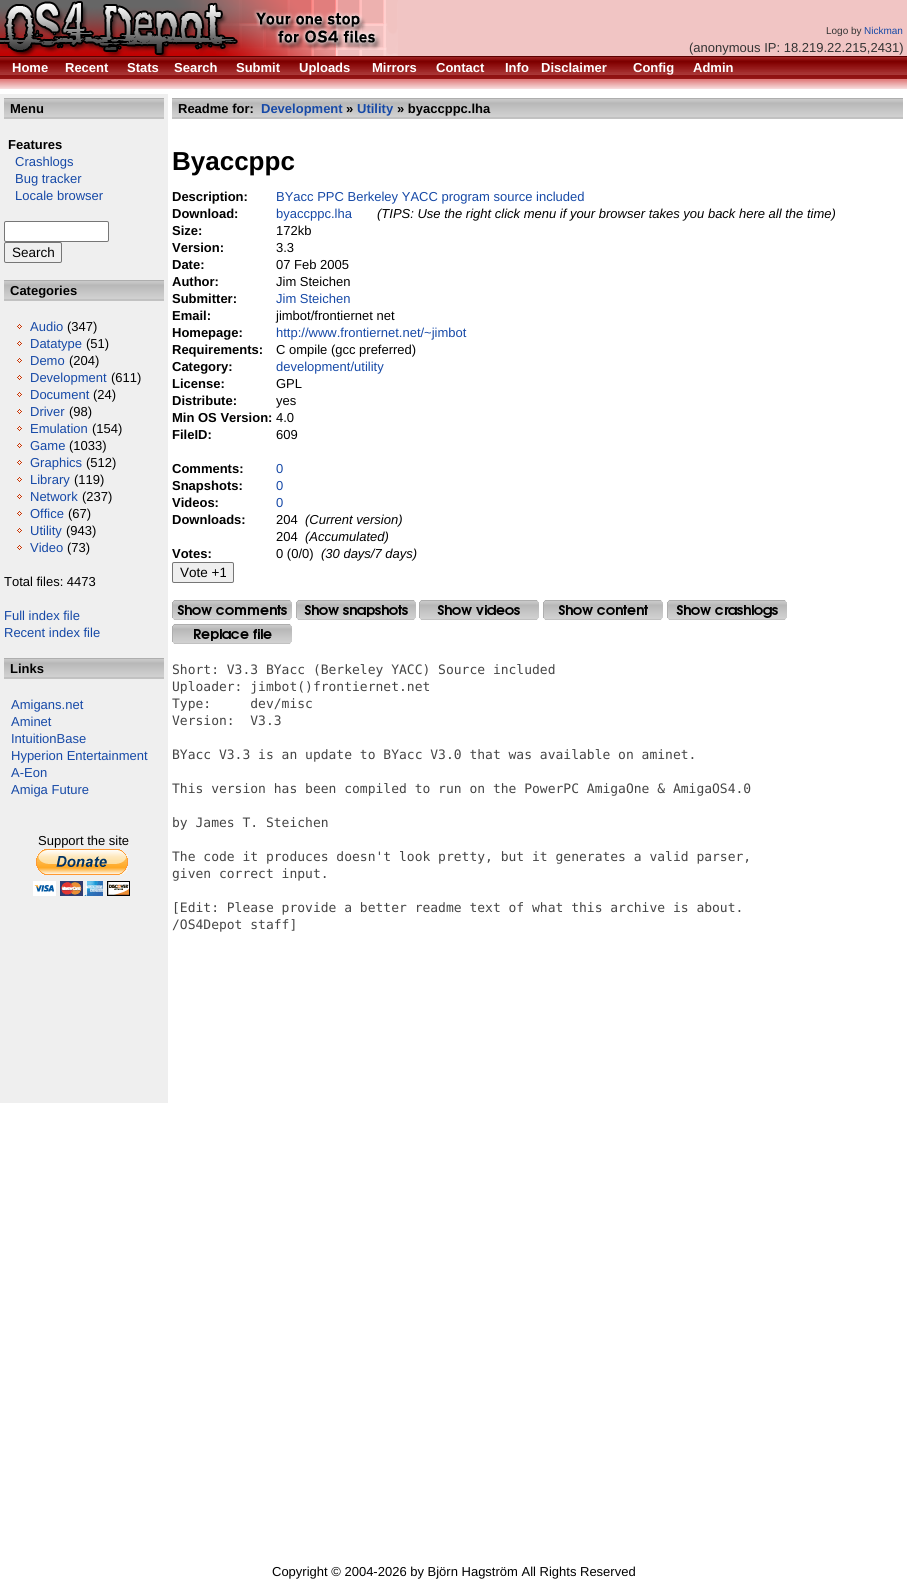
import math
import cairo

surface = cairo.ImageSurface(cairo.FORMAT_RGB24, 907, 1581)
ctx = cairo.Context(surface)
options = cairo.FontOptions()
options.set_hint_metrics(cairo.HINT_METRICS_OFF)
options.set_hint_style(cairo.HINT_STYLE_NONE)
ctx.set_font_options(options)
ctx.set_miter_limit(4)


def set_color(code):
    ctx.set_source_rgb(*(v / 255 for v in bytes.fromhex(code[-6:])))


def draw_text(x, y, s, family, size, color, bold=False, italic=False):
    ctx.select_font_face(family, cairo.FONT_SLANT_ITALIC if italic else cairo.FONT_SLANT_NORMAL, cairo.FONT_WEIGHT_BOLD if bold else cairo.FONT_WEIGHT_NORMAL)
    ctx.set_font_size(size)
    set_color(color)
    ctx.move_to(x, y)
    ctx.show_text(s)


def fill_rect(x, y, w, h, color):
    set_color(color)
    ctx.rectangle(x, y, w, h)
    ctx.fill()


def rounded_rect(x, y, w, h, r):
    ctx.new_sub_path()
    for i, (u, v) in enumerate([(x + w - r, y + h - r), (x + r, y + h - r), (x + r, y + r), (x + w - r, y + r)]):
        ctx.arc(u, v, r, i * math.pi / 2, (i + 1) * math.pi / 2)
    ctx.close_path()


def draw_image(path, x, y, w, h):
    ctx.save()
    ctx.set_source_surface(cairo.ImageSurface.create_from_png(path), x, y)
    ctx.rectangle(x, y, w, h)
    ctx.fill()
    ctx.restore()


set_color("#ffffff")
ctx.paint()
fill_rect(398, 0, 509, 56, "#f1c5c4")
draw_image("assets/img1.png", 0, 0, 398, 56)
draw_text(826, 34, "Logo by", "Liberation Sans", 10, "#333333")
draw_text(864, 34, "Nickman", "Liberation Sans", 10, "#1649a7")
draw_text(689, 52, "(anonymous IP: 18.219.22.215,2431)", "Liberation Sans", 13, "#333333")
draw_image("assets/img2.png", 0, 56, 907, 23)
draw_text(12, 72, "Home", "Liberation Sans", 13, "#ffffff", bold=True)
draw_text(65, 72, "Recent", "Liberation Sans", 13, "#ffffff", bold=True)
draw_text(127, 72, "Stats", "Liberation Sans", 13, "#ffffff", bold=True)
draw_text(174, 72, "Search", "Liberation Sans", 13, "#ffffff", bold=True)
draw_text(236, 72, "Submit", "Liberation Sans", 13, "#ffffff", bold=True)
draw_text(299, 72, "Uploads", "Liberation Sans", 13, "#ffffff", bold=True)
draw_text(372, 72, "Mirrors", "Liberation Sans", 13, "#ffffff", bold=True)
draw_text(436, 72, "Contact", "Liberation Sans", 13, "#ffffff", bold=True)
draw_text(505, 72, "Info", "Liberation Sans", 13, "#ffffff", bold=True)
draw_text(541, 72, "Disclaimer", "Liberation Sans", 13, "#ffffff", bold=True)
draw_text(633, 72, "Config", "Liberation Sans", 13, "#ffffff", bold=True)
draw_text(693, 72, "Admin", "Liberation Sans", 13, "#ffffff", bold=True)
fill_rect(0, 79, 907, 1, "#e18080")
draw_image("assets/img3.png", 0, 80, 907, 9)
fill_rect(0, 94, 168, 1009, "#efefef")
draw_image("assets/img4.png", 4, 98, 160, 21)
draw_text(10, 113, "Menu", "Liberation Sans", 13, "#000000", bold=True)
draw_text(8, 149, "Features", "Liberation Sans", 13, "#000000", bold=True)
draw_text(15, 166, "Crashlogs", "Liberation Sans", 13, "#1649a7")
draw_text(15, 183, "Bug tracker", "Liberation Sans", 13, "#1649a7")
draw_text(15, 200, "Locale browser", "Liberation Sans", 13, "#1649a7")
set_color("#ffffff")
rounded_rect(4.5, 221.5, 104, 20, 1.5)
ctx.fill_preserve()
set_color("#767676")
ctx.set_line_width(1)
ctx.stroke()
rounded_rect(4.5, 242.5, 57, 20, 1.5)
ctx.stroke()
draw_text(12, 257, "Search", "Liberation Sans", 13.5, "#000000")
draw_image("assets/img4.png", 4, 280, 160, 21)
draw_text(10, 295, "Categories", "Liberation Sans", 13, "#000000", bold=True)
draw_image("assets/img5.png", 17, 324, 5, 5)
draw_text(30, 331, "Audio", "Liberation Sans", 13, "#1649a7")
draw_text(67, 331, "(347)", "Liberation Sans", 13, "#000000")
draw_image("assets/img5.png", 17, 341, 5, 5)
draw_text(30, 348, "Datatype", "Liberation Sans", 13, "#1649a7")
draw_text(86, 348, "(51)", "Liberation Sans", 13, "#000000")
draw_image("assets/img5.png", 17, 358, 5, 5)
draw_text(30, 365, "Demo", "Liberation Sans", 13, "#1649a7")
draw_text(69, 365, "(204)", "Liberation Sans", 13, "#000000")
draw_image("assets/img5.png", 17, 375, 5, 5)
draw_text(30, 382, "Development", "Liberation Sans", 13, "#1649a7")
draw_text(111, 382, "(611)", "Liberation Sans", 13, "#000000")
draw_image("assets/img5.png", 17, 392, 5, 5)
draw_text(30, 399, "Document", "Liberation Sans", 13, "#1649a7")
draw_text(93, 399, "(24)", "Liberation Sans", 13, "#000000")
draw_image("assets/img5.png", 17, 409, 5, 5)
draw_text(30, 416, "Driver", "Liberation Sans", 13, "#1649a7")
draw_text(69, 416, "(98)", "Liberation Sans", 13, "#000000")
draw_image("assets/img5.png", 17, 426, 5, 5)
draw_text(30, 433, "Emulation", "Liberation Sans", 13, "#1649a7")
draw_text(92, 433, "(154)", "Liberation Sans", 13, "#000000")
draw_image("assets/img5.png", 17, 443, 5, 5)
draw_text(30, 450, "Game", "Liberation Sans", 13, "#1649a7")
draw_text(69, 450, "(1033)", "Liberation Sans", 13, "#000000")
draw_image("assets/img5.png", 17, 460, 5, 5)
draw_text(30, 467, "Graphics", "Liberation Sans", 13, "#1649a7")
draw_text(86, 467, "(512)", "Liberation Sans", 13, "#000000")
draw_image("assets/img5.png", 17, 477, 5, 5)
draw_text(30, 484, "Library", "Liberation Sans", 13, "#1649a7")
draw_text(74, 484, "(119)", "Liberation Sans", 13, "#000000")
draw_image("assets/img5.png", 17, 494, 5, 5)
draw_text(30, 501, "Network", "Liberation Sans", 13, "#1649a7")
draw_text(82, 501, "(237)", "Liberation Sans", 13, "#000000")
draw_image("assets/img5.png", 17, 511, 5, 5)
draw_text(30, 518, "Office", "Liberation Sans", 13, "#1649a7")
draw_text(68, 518, "(67)", "Liberation Sans", 13, "#000000")
draw_image("assets/img5.png", 17, 528, 5, 5)
draw_text(30, 535, "Utility", "Liberation Sans", 13, "#1649a7")
draw_text(66, 535, "(943)", "Liberation Sans", 13, "#000000")
draw_image("assets/img5.png", 17, 545, 5, 5)
draw_text(30, 552, "Video", "Liberation Sans", 13, "#1649a7")
draw_text(67, 552, "(73)", "Liberation Sans", 13, "#000000")
draw_text(4, 586, "Total files: 4473", "Liberation Sans", 13, "#000000")
draw_text(4, 620, "Full index file", "Liberation Sans", 13, "#1649a7")
draw_text(4, 637, "Recent index file", "Liberation Sans", 13, "#1649a7")
draw_image("assets/img4.png", 4, 658, 160, 21)
draw_text(10, 673, "Links", "Liberation Sans", 13, "#000000", bold=True)
draw_text(11, 709, "Amigans.net", "Liberation Sans", 13, "#1649a7")
draw_text(11, 726, "Aminet", "Liberation Sans", 13, "#1649a7")
draw_text(11, 743, "IntuitionBase", "Liberation Sans", 13, "#1649a7")
draw_text(11, 760, "Hyperion Entertainment", "Liberation Sans", 13, "#1649a7")
draw_text(11, 777, "A-Eon", "Liberation Sans", 13, "#1649a7")
draw_text(11, 794, "Amiga Future", "Liberation Sans", 13, "#1649a7")
draw_text(38, 845, "Support the site", "Liberation Sans", 13, "#000000")
draw_image("assets/img6.png", 33, 849, 97, 47)
draw_image("assets/img7.png", 172, 98, 731, 21)
draw_text(178, 113, "Readme for:", "Liberation Sans", 13, "#000000", bold=True)
draw_text(261, 113, "Development", "Liberation Sans", 13, "#1649a7", bold=True)
draw_text(346, 113, "»", "Liberation Sans", 13, "#000000", bold=True)
draw_text(357, 113, "Utility", "Liberation Sans", 13, "#1649a7", bold=True)
draw_text(397, 113, "» byaccppc.lha", "Liberation Sans", 13, "#000000", bold=True)
draw_text(172, 170, "Byaccppc", "Liberation Sans", 26, "#000000", bold=True)
draw_text(172, 201, "Description:", "Liberation Sans", 13, "#000000", bold=True)
draw_text(276, 201, "BYacc PPC Berkeley YACC program source included", "Liberation Sans", 13, "#1649a7")
draw_text(172, 218, "Download:", "Liberation Sans", 13, "#000000", bold=True)
draw_text(276, 218, "byaccppc.lha", "Liberation Sans", 13, "#1649a7")
draw_text(377, 218, "(TIPS: Use the right click menu if your browser takes you back here all the time)", "Liberation Sans", 13, "#000000", italic=True)
draw_text(172, 235, "Size:", "Liberation Sans", 13, "#000000", bold=True)
draw_text(276, 235, "172kb", "Liberation Sans", 13, "#000000")
draw_text(172, 252, "Version:", "Liberation Sans", 13, "#000000", bold=True)
draw_text(276, 252, "3.3", "Liberation Sans", 13, "#000000")
draw_text(172, 269, "Date:", "Liberation Sans", 13, "#000000", bold=True)
draw_text(276, 269, "07 Feb 2005", "Liberation Sans", 13, "#000000")
draw_text(172, 286, "Author:", "Liberation Sans", 13, "#000000", bold=True)
draw_text(276, 286, "Jim Steichen", "Liberation Sans", 13, "#000000")
draw_text(172, 303, "Submitter:", "Liberation Sans", 13, "#000000", bold=True)
draw_text(276, 303, "Jim Steichen", "Liberation Sans", 13, "#1649a7")
draw_text(172, 320, "Email:", "Liberation Sans", 13, "#000000", bold=True)
draw_text(276, 320, "jimbot/frontiernet net", "Liberation Sans", 13, "#000000")
draw_text(172, 337, "Homepage:", "Liberation Sans", 13, "#000000", bold=True)
draw_text(276, 337, "http://www.frontiernet.net/~jimbot", "Liberation Sans", 13, "#1649a7")
draw_text(172, 354, "Requirements:", "Liberation Sans", 13, "#000000", bold=True)
draw_text(276, 354, "C ompile (gcc preferred)", "Liberation Sans", 13, "#000000")
draw_text(172, 371, "Category:", "Liberation Sans", 13, "#000000", bold=True)
draw_text(276, 371, "development/utility", "Liberation Sans", 13, "#1649a7")
draw_text(172, 388, "License:", "Liberation Sans", 13, "#000000", bold=True)
draw_text(276, 388, "GPL", "Liberation Sans", 13, "#000000")
draw_text(172, 405, "Distribute:", "Liberation Sans", 13, "#000000", bold=True)
draw_text(276, 405, "yes", "Liberation Sans", 13, "#000000")
draw_text(172, 422, "Min OS Version:", "Liberation Sans", 13, "#000000", bold=True)
draw_text(276, 422, "4.0", "Liberation Sans", 13, "#000000")
draw_text(172, 439, "FileID:", "Liberation Sans", 13, "#000000", bold=True)
draw_text(276, 439, "609", "Liberation Sans", 13, "#000000")
draw_text(172, 473, "Comments:", "Liberation Sans", 13, "#000000", bold=True)
draw_text(276, 473, "0", "Liberation Sans", 13, "#1649a7")
draw_text(172, 490, "Snapshots:", "Liberation Sans", 13, "#000000", bold=True)
draw_text(276, 490, "0", "Liberation Sans", 13, "#1649a7")
draw_text(172, 507, "Videos:", "Liberation Sans", 13, "#000000", bold=True)
draw_text(276, 507, "0", "Liberation Sans", 13, "#1649a7")
draw_text(172, 524, "Downloads:", "Liberation Sans", 13, "#000000", bold=True)
draw_text(276, 524, "204", "Liberation Sans", 13, "#000000")
draw_text(305, 524, "(Current version)", "Liberation Sans", 13, "#000000", italic=True)
draw_text(276, 541, "204", "Liberation Sans", 13, "#000000")
draw_text(305, 541, "(Accumulated)", "Liberation Sans", 13, "#000000", italic=True)
draw_text(172, 558, "Votes:", "Liberation Sans", 13, "#000000", bold=True)
draw_text(276, 558, "0 (0/0)", "Liberation Sans", 13, "#000000")
draw_text(321, 558, "(30 days/7 days)", "Liberation Sans", 13, "#000000", italic=True)
set_color("#efefef")
rounded_rect(172.5, 562.5, 61, 20, 1.5)
ctx.fill_preserve()
set_color("#767676")
ctx.stroke()
draw_text(180, 577, "Vote +1", "Liberation Sans", 13.5, "#000000")
draw_image("assets/img8.png", 172, 600, 120, 20)
draw_image("assets/img9.png", 296, 600, 120, 20)
draw_image("assets/img10.png", 419, 600, 120, 20)
draw_image("assets/img11.png", 543, 600, 120, 20)
draw_image("assets/img12.png", 667, 600, 120, 20)
draw_image("assets/img13.png", 172, 624, 120, 20)
draw_text(172, 674, "Short: V3.3 BYacc (Berkeley YACC) Source included", "DejaVu Sans Mono", 13, "#444444")
draw_text(172, 691, "Uploader: jimbot()frontiernet.net", "DejaVu Sans Mono", 13, "#444444")
draw_text(172, 708, "Type:     dev/misc", "DejaVu Sans Mono", 13, "#444444")
draw_text(172, 725, "Version:  V3.3", "DejaVu Sans Mono", 13, "#444444")
draw_text(172, 759, "BYacc V3.3 is an update to BYacc V3.0 that was available on aminet.", "DejaVu Sans Mono", 13, "#444444")
draw_text(172, 793, "This version has been compiled to run on the PowerPC AmigaOne & AmigaOS4.0", "DejaVu Sans Mono", 13, "#444444")
draw_text(172, 827, "by James T. Steichen", "DejaVu Sans Mono", 13, "#444444")
draw_text(172, 861, "The code it produces doesn't look pretty, but it generates a valid parser,", "DejaVu Sans Mono", 13, "#444444")
draw_text(172, 878, "given correct input.", "DejaVu Sans Mono", 13, "#444444")
draw_text(172, 912, "[Edit: Please provide a better readme text of what this archive is about.", "DejaVu Sans Mono", 13, "#444444")
draw_text(172, 929, "/OS4Depot staff]", "DejaVu Sans Mono", 13, "#444444")
draw_text(272, 1576, "Copyright © 2004-2026 by Björn Hagström All Rights Reserved", "Liberation Sans", 13, "#000000")
surface.write_to_png("output.png")
